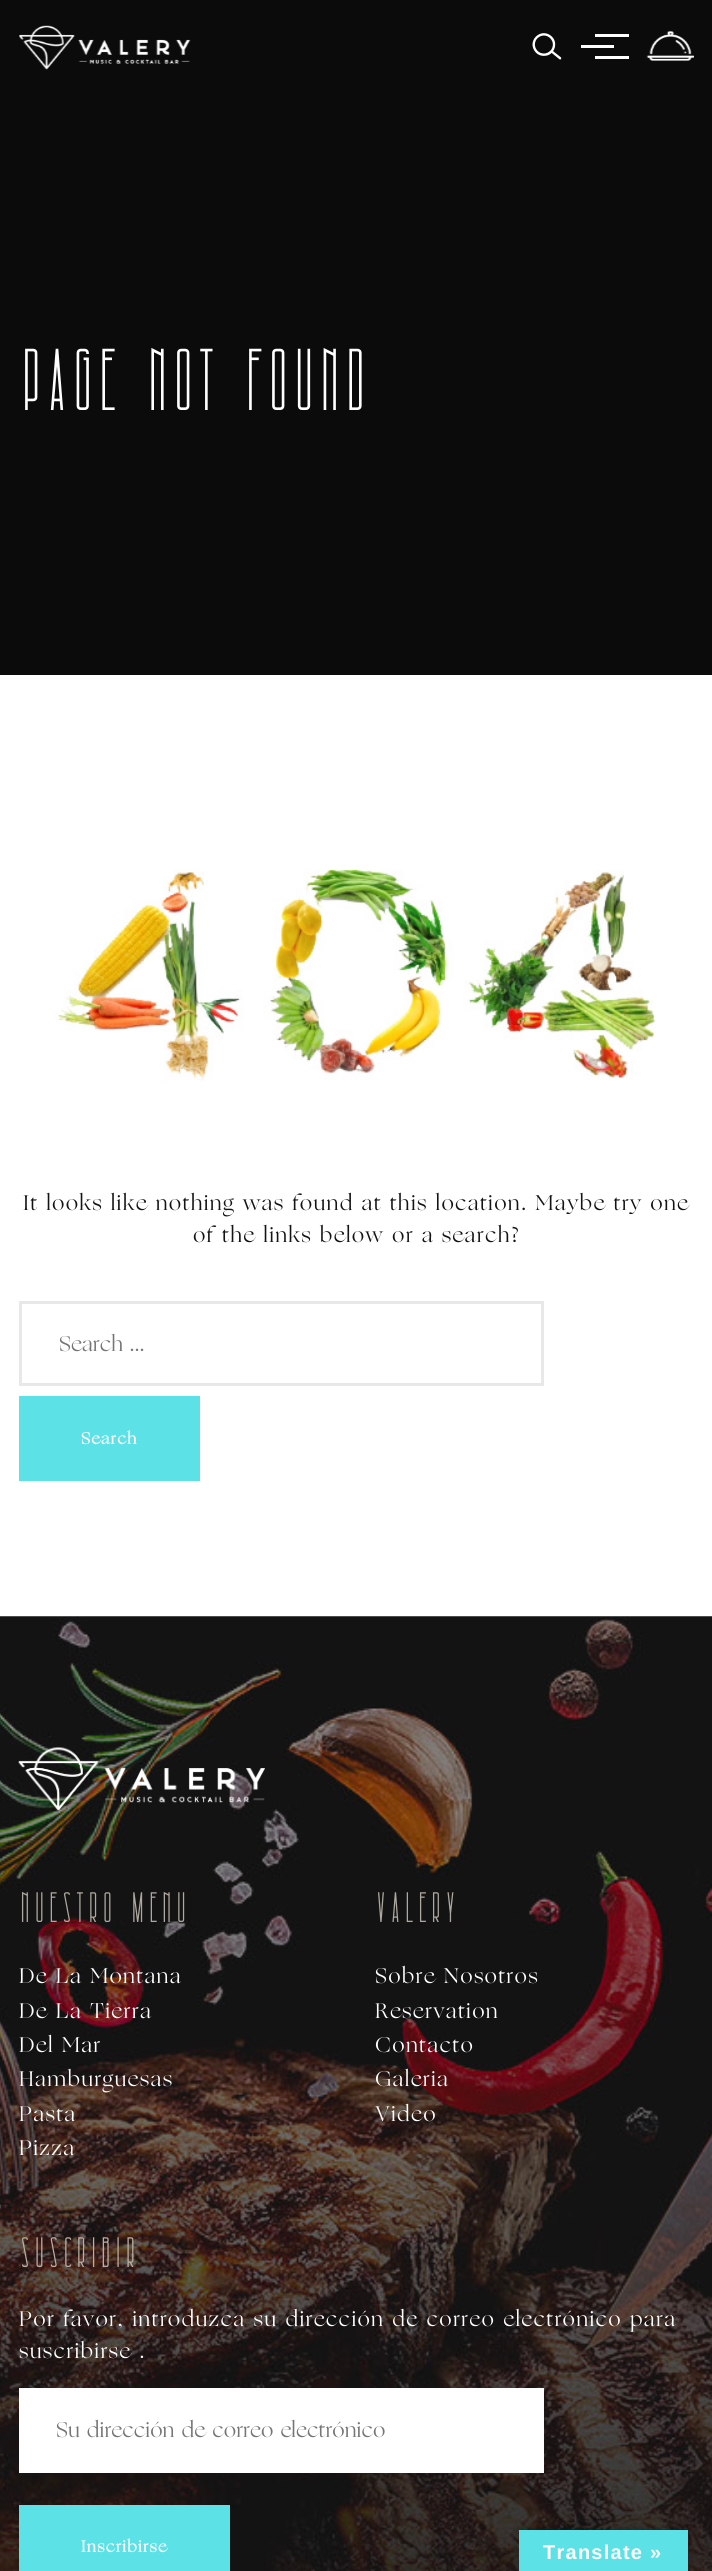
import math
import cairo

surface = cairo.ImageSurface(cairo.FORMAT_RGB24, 712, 2571)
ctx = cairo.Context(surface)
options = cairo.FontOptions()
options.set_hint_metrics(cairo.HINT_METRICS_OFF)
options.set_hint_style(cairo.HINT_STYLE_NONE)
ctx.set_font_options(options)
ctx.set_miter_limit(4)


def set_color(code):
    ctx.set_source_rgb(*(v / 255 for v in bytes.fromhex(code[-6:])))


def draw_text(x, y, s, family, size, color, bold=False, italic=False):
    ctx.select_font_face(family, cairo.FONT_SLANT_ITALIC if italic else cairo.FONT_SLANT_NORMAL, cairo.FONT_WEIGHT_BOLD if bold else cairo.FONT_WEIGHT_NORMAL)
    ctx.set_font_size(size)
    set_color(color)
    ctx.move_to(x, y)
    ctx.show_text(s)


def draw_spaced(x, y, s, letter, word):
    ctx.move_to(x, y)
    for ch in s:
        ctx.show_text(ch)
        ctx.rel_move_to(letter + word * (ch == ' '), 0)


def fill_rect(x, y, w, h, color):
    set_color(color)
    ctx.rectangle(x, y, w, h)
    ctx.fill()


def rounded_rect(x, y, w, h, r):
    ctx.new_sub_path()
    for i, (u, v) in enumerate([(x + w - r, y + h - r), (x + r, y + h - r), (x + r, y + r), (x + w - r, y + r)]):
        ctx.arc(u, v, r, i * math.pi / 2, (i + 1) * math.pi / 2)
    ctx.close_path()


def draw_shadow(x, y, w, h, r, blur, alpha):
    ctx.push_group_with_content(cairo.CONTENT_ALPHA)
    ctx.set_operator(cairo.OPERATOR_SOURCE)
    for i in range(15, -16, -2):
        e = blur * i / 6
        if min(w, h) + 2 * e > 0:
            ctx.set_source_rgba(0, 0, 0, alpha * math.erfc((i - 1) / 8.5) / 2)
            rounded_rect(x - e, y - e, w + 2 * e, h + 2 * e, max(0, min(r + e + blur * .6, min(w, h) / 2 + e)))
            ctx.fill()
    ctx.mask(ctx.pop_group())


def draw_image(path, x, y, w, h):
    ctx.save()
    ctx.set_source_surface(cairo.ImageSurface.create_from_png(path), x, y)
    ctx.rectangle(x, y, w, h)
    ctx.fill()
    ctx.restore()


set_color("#ffffff")
ctx.paint()
fill_rect(0, 0, 712, 675, "#0b0b0b")
draw_image("assets/img1.png", 19, 25, 172, 45)
draw_image("assets/img2.png", 532, 33, 30, 27)
fill_rect(595, 34, 34, 3, "#ffffff")
fill_rect(581, 45, 33, 3, "#ffffff")
fill_rect(595, 56, 34, 3, "#ffffff")
draw_image("assets/img3.png", 646, 31, 48, 30)
ctx.select_font_face("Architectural")
ctx.set_font_size(87.5)
draw_spaced(19, 410, "Page not found", 1.25, 0)
draw_image("assets/img4.png", 54, 869, 603, 212)
ctx.select_font_face("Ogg")
ctx.set_font_size(21.25)
set_color("#131313")
draw_spaced(23, 1210, "It looks like nothing was found at this location. Maybe try one", 1.25, 0)
draw_spaced(193, 1242, "of the links below or a search?", 1.25, 0)
ctx.rectangle(20.5, 1302.5, 522, 82)
set_color("#e8e8e8")
ctx.set_line_width(3)
ctx.stroke()
draw_text(59, 1351, "Search …", "Ogg", 21.25, "#757575")
fill_rect(19, 1396, 181, 85, "#5ce1e6")
ctx.select_font_face("Ogg", cairo.FONT_SLANT_NORMAL, cairo.FONT_WEIGHT_BOLD)
ctx.set_font_size(16.25)
set_color("#ffffff")
draw_spaced(81, 1444, "Search", 1.25, 0)
draw_image("assets/img5.png", 0, 1616, 712, 955)
draw_image("assets/img6.png", 18, 1747, 247, 63)
ctx.select_font_face("Architectural")
ctx.set_font_size(42.5)
set_color("#aea89e")
draw_spaced(19, 1922, "NUESTRO MENU", 2.5, 0)
ctx.select_font_face("Ogg")
ctx.set_font_size(21.25)
set_color("#ffffff")
draw_spaced(19, 1983, "De La Montana", 1.25, 0)
draw_spaced(19, 2018, "De La Tierra", 1.25, 0)
draw_spaced(19, 2052, "Del Mar", 1.25, 0)
draw_spaced(19, 2086, "Hamburguesas", 1.25, 0)
draw_spaced(19, 2121, "Pasta", 1.25, 0)
draw_spaced(19, 2155, "Pizza", 1.25, 0)
ctx.select_font_face("Architectural")
ctx.set_font_size(42.5)
set_color("#aea89e")
draw_spaced(375, 1922, "Valery", 2.5, 0)
ctx.select_font_face("Ogg")
ctx.set_font_size(21.25)
set_color("#ffffff")
draw_spaced(375, 1983, "Sobre Nosotros", 1.25, 0)
draw_spaced(375, 2018, "Reservation", 1.25, 0)
draw_spaced(375, 2052, "Contacto", 1.25, 0)
draw_spaced(375, 2086, "Galeria", 1.25, 0)
draw_spaced(375, 2121, "Video", 1.25, 0)
ctx.select_font_face("Architectural")
ctx.set_font_size(42.5)
set_color("#bbafa2")
draw_spaced(19, 2267, "SUSCRIBIR", 2.5, 0)
ctx.select_font_face("Ogg")
ctx.set_font_size(21.25)
set_color("#ffffff")
draw_spaced(19, 2326, "Por favor, introduzca su dirección de correo electrónico para", 1.25, 0.25)
draw_spaced(19, 2358, "suscribirse .", 1.25, 0)
fill_rect(19, 2388, 525, 85, "#ffffff")
set_color("#757575")
draw_spaced(56, 2437, "Su dirección de correo electrónico", 0, 0.5)
fill_rect(19, 2505, 211, 66, "#5ce1e6")
ctx.select_font_face("Ogg", cairo.FONT_SLANT_NORMAL, cairo.FONT_WEIGHT_BOLD)
ctx.set_font_size(16.25)
set_color("#ffffff")
draw_spaced(81, 2552, "Inscribirse", 1.25, 0)
set_color("#000000")
draw_shadow(519, 2530, 169, 41, 0, 5.5, 0.3)
fill_rect(519, 2530, 169, 41, "#5ce1e6")
ctx.select_font_face("Liberation Sans", cairo.FONT_SLANT_NORMAL, cairo.FONT_WEIGHT_BOLD)
ctx.set_font_size(20)
set_color("#ffffff")
draw_spaced(543, 2559, "Translate »", 1.25, 0)
surface.write_to_png("output.png")
